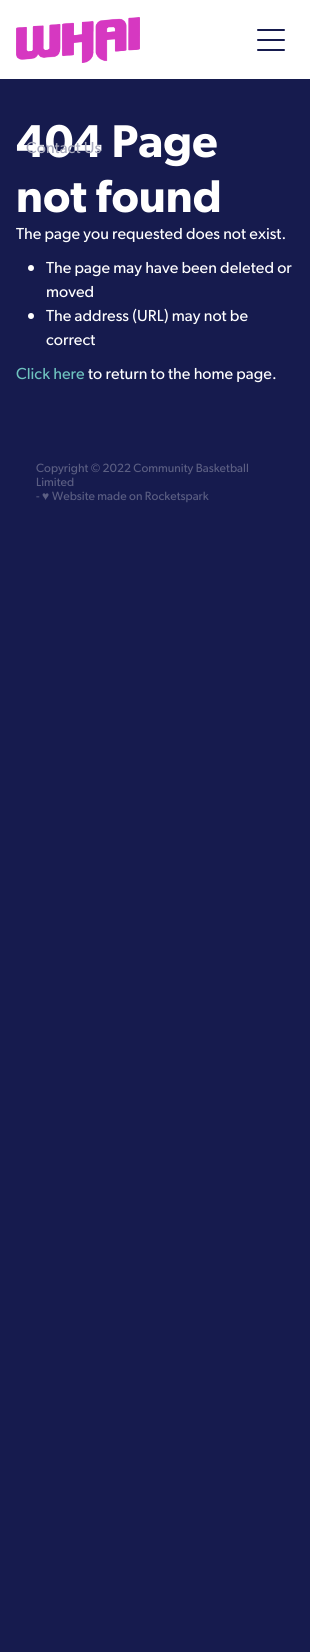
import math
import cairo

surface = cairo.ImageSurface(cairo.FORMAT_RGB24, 310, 1652)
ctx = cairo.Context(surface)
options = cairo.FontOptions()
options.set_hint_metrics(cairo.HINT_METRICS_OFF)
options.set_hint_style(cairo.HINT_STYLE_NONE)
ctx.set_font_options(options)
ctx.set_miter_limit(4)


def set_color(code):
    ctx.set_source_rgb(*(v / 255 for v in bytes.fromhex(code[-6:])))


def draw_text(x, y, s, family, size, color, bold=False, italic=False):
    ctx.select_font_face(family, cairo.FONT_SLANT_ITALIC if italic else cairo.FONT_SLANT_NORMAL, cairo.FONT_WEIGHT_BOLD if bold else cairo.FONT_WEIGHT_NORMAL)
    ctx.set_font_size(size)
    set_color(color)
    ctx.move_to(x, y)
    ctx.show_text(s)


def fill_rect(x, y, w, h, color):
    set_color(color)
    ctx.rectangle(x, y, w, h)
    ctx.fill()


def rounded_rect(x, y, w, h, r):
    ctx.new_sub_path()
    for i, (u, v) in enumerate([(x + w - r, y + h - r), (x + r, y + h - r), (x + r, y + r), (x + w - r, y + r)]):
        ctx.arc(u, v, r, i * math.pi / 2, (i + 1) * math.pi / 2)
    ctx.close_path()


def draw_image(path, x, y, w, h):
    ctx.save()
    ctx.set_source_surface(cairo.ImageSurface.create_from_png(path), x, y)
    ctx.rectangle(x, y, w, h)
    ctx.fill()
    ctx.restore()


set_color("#161b4e")
ctx.paint()
draw_text(16, 157, "404 Page", "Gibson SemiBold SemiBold", 46, "#ffffff")
draw_text(16, 212, "not found", "Gibson SemiBold SemiBold", 46, "#ffffff")
draw_text(16, 239, "The page you requested does not exist.", "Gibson", 16, "#ffffff")
ctx.new_path()
ctx.arc(31, 268, 3, 0, 2 * math.pi)
ctx.fill()
draw_text(46, 273, "The page may have been deleted or", "Gibson", 16, "#ffffff")
draw_text(46, 297, "moved", "Gibson", 16, "#ffffff")
ctx.new_path()
ctx.arc(31, 316, 3, 0, 2 * math.pi)
ctx.fill()
draw_text(46, 321, "The address (URL) may not be", "Gibson", 16, "#ffffff")
draw_text(46, 345, "correct", "Gibson", 16, "#ffffff")
draw_text(16, 379, "Click here", "Gibson", 16, "#6ec3bf")
draw_text(88, 379, "to return to the home page.", "Gibson", 16, "#ffffff")
fill_rect(0, 0, 310, 79, "#ffffff")
draw_image("assets/img1.png", 16, 17, 124, 46)
set_color("#161b4e")
rounded_rect(257, 39, 28, 2, 1)
ctx.fill()
rounded_rect(257, 29, 28, 2, 1)
ctx.fill()
rounded_rect(257, 49, 28, 2, 1)
ctx.fill()
draw_text(26, 153, "Contact Us", "Gibson", 16, "#a7a9bc")
draw_text(36, 472, "Copyright © 2022 Community Basketball", "Gibson", 12, "#5c5f83")
draw_text(36, 486, "Limited", "Gibson", 12, "#5c5f83")
draw_text(36, 500, "-", "Gibson", 12, "#5c5f83")
draw_text(42, 500, "♥", "Liberation Sans", 12, "#5c5f83")
draw_text(52, 500, "Website made on Rocketspark", "Gibson", 12, "#5c5f83")
surface.write_to_png("output.png")
